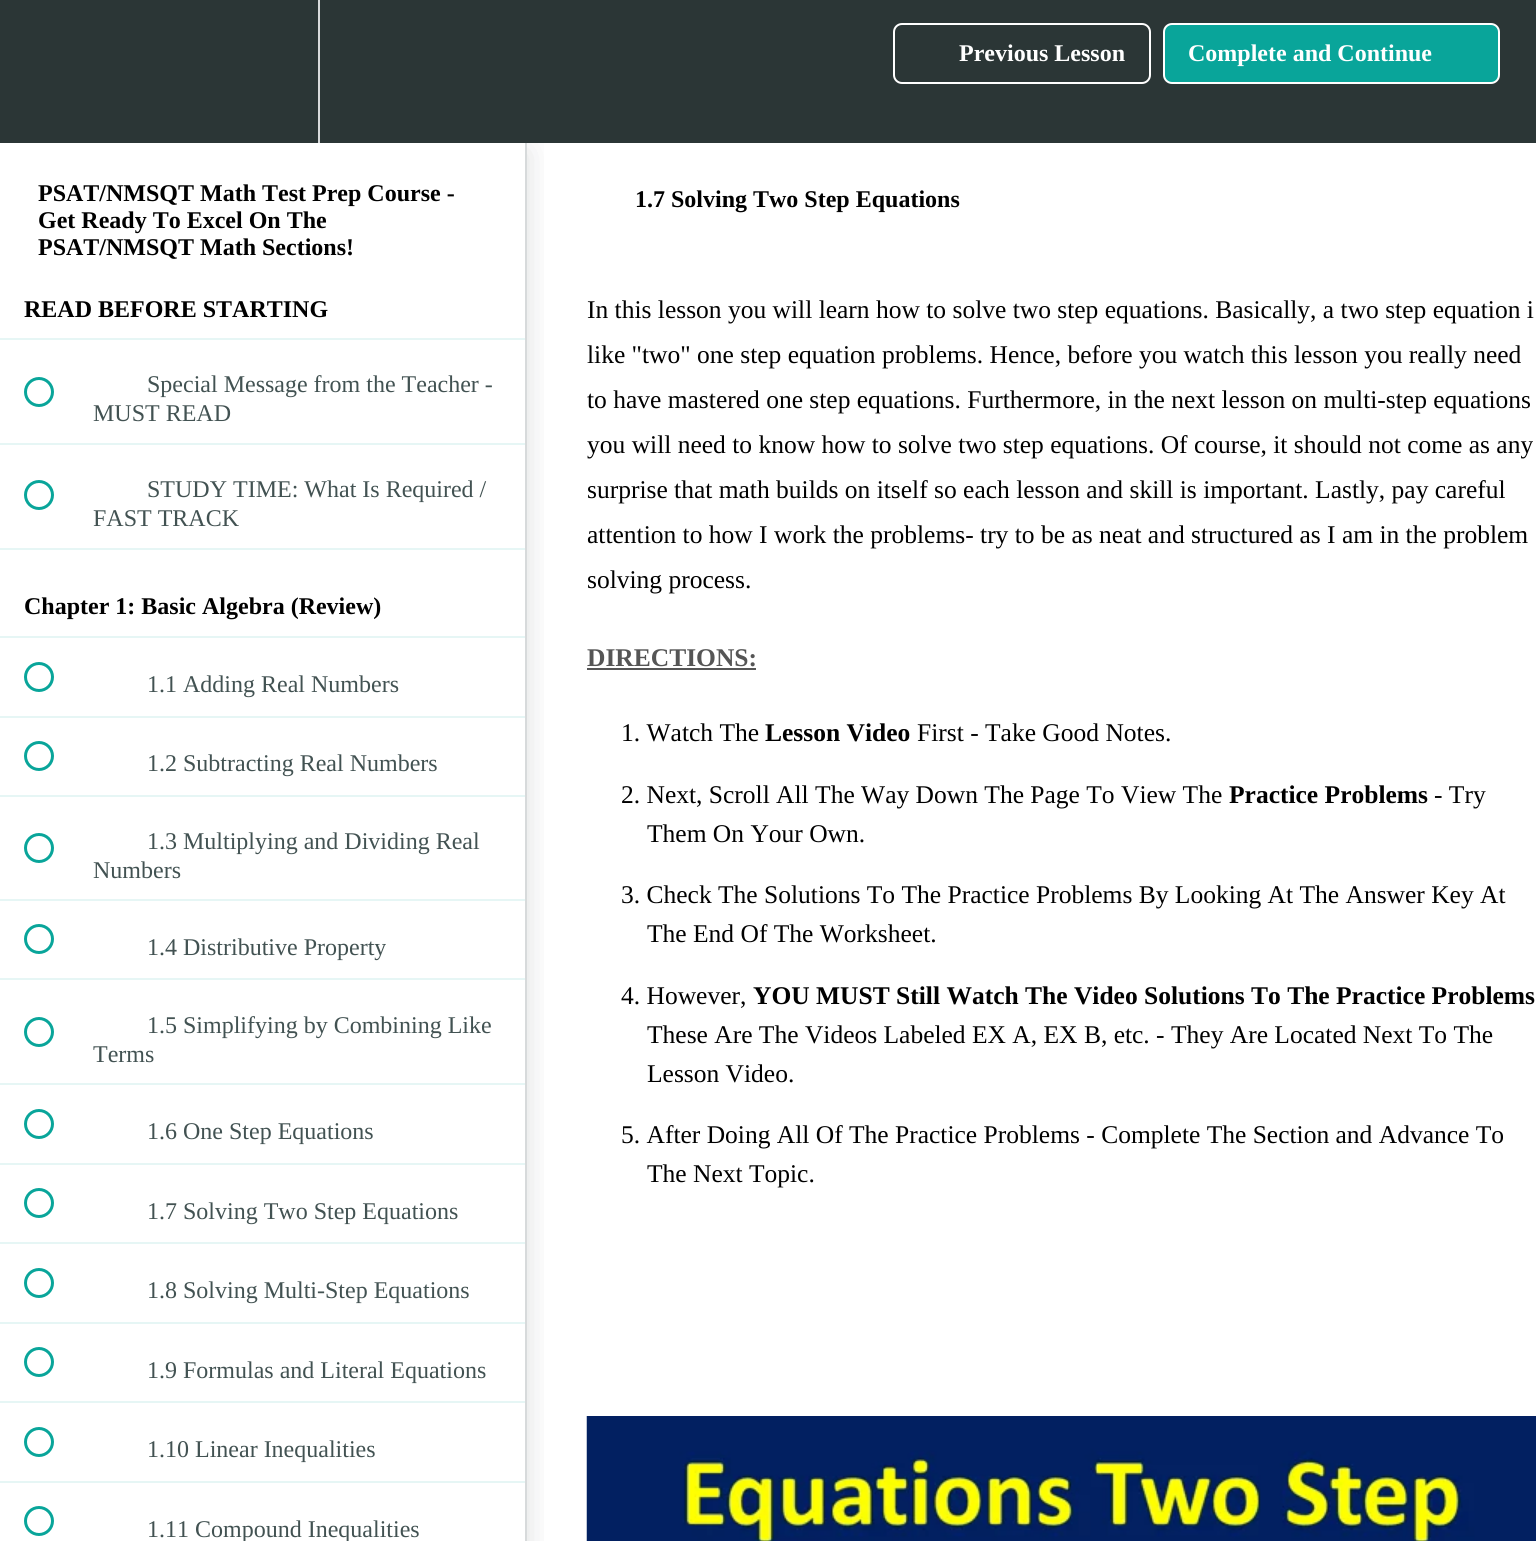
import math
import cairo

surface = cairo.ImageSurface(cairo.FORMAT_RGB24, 1536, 1541)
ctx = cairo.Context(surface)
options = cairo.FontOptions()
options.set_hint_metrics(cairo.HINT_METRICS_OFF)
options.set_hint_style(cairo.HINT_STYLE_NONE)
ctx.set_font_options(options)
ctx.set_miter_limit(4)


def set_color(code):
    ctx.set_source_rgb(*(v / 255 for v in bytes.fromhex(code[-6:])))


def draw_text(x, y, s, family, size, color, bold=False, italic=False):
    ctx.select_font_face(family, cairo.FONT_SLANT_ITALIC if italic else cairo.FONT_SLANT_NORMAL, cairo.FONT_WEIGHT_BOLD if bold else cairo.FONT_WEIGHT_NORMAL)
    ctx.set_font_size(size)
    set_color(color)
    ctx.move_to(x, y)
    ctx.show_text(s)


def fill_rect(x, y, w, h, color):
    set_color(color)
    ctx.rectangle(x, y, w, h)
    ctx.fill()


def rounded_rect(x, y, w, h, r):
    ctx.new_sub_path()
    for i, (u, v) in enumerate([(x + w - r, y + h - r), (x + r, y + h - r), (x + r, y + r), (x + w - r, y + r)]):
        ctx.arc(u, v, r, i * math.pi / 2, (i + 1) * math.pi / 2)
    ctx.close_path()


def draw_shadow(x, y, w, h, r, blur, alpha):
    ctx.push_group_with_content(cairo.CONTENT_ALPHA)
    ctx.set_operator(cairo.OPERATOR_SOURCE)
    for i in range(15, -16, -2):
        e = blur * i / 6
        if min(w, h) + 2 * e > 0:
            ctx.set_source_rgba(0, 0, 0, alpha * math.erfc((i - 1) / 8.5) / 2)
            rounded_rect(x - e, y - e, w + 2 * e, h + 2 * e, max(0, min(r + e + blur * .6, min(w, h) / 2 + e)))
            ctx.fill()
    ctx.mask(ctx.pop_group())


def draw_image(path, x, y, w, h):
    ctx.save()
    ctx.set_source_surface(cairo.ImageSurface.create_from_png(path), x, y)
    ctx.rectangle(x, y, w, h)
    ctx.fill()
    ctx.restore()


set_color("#ffffff")
ctx.paint()
ctx.save()
ctx.rectangle(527, 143, 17, 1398)
ctx.clip()
set_color("#20272d")
draw_shadow(0, 152, 527, 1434, 0, 15, 0.15)
ctx.restore()
fill_rect(0, 0, 1536, 143, "#2b3636")
fill_rect(318, 0, 2, 143, "#d7dadb")
rounded_rect(894, 24, 256, 59, 8)
set_color("#ffffff")
ctx.stroke()
draw_text(959, 61, "Previous Lesson", "Liberation Serif", 24, "#ffffff", bold=True)
set_color("#09a59a")
rounded_rect(1164, 24, 335, 59, 8)
ctx.fill_preserve()
set_color("#ffffff")
ctx.stroke()
draw_text(1188, 61, "Complete and Continue", "Liberation Serif", 24, "#ffffff", bold=True)
fill_rect(525, 143, 2, 1398, "#d7dadb")
draw_text(38, 201, "PSAT/NMSQT Math Test Prep Course -", "Liberation Serif", 24, "#000000", bold=True)
draw_text(38, 228, "Get Ready To Excel On The", "Liberation Serif", 24, "#000000", bold=True)
draw_text(38, 255, "PSAT/NMSQT Math Sections!", "Liberation Serif", 24, "#000000", bold=True)
fill_rect(0, 338, 525, 2, "#e6f6f5")
draw_text(24, 317, "READ BEFORE STARTING", "Liberation Serif", 24, "#000000", bold=True)
fill_rect(0, 443, 525, 2, "#e6f6f5")
ctx.new_path()
ctx.arc(39, 392, 13.5, 0, 2 * math.pi)
set_color("#09a59a")
ctx.set_line_width(3)
ctx.stroke()
draw_text(147, 392, "Special Message from the Teacher -", "Liberation Serif", 24, "#425252")
draw_text(93, 421, "MUST READ", "Liberation Serif", 24, "#425252")
fill_rect(0, 548, 525, 2, "#e6f6f5")
ctx.new_path()
ctx.arc(39, 495, 13.5, 0, 2 * math.pi)
set_color("#09a59a")
ctx.stroke()
draw_text(147, 497, "STUDY TIME: What Is Required /", "Liberation Serif", 24, "#425252")
draw_text(93, 526, "FAST TRACK", "Liberation Serif", 24, "#425252")
fill_rect(0, 636, 525, 2, "#e6f6f5")
draw_text(24, 614, "Chapter 1: Basic Algebra (Review)", "Liberation Serif", 24, "#000000", bold=True)
fill_rect(0, 716, 525, 2, "#e6f6f5")
ctx.new_path()
ctx.arc(39, 677, 13.5, 0, 2 * math.pi)
set_color("#09a59a")
ctx.stroke()
draw_text(147, 692, "1.1 Adding Real Numbers", "Liberation Serif", 24, "#425252")
fill_rect(0, 795, 525, 2, "#e6f6f5")
ctx.new_path()
ctx.arc(39, 756, 13.5, 0, 2 * math.pi)
set_color("#09a59a")
ctx.stroke()
draw_text(147, 771, "1.2 Subtracting Real Numbers", "Liberation Serif", 24, "#425252")
fill_rect(0, 899, 525, 2, "#e6f6f5")
ctx.new_path()
ctx.arc(39, 848, 13.5, 0, 2 * math.pi)
set_color("#09a59a")
ctx.stroke()
draw_text(147, 849, "1.3 Multiplying and Dividing Real", "Liberation Serif", 24, "#425252")
draw_text(93, 878, "Numbers", "Liberation Serif", 24, "#425252")
fill_rect(0, 978, 525, 2, "#e6f6f5")
ctx.new_path()
ctx.arc(39, 939, 13.5, 0, 2 * math.pi)
set_color("#09a59a")
ctx.stroke()
draw_text(147, 955, "1.4 Distributive Property", "Liberation Serif", 24, "#425252")
fill_rect(0, 1083, 525, 2, "#e6f6f5")
ctx.new_path()
ctx.arc(39, 1032, 13.5, 0, 2 * math.pi)
set_color("#09a59a")
ctx.stroke()
draw_text(147, 1033, "1.5 Simplifying by Combining Like", "Liberation Serif", 24, "#425252")
draw_text(93, 1062, "Terms", "Liberation Serif", 24, "#425252")
fill_rect(0, 1163, 525, 2, "#e6f6f5")
ctx.new_path()
ctx.arc(39, 1124, 13.5, 0, 2 * math.pi)
set_color("#09a59a")
ctx.stroke()
draw_text(147, 1139, "1.6 One Step Equations", "Liberation Serif", 24, "#425252")
fill_rect(0, 1242, 525, 2, "#e6f6f5")
ctx.new_path()
ctx.arc(39, 1203, 13.5, 0, 2 * math.pi)
set_color("#09a59a")
ctx.stroke()
draw_text(147, 1219, "1.7 Solving Two Step Equations", "Liberation Serif", 24, "#425252")
fill_rect(0, 1322, 525, 2, "#e6f6f5")
ctx.new_path()
ctx.arc(39, 1283, 13.5, 0, 2 * math.pi)
set_color("#09a59a")
ctx.stroke()
draw_text(147, 1298, "1.8 Solving Multi-Step Equations", "Liberation Serif", 24, "#425252")
fill_rect(0, 1401, 525, 2, "#e6f6f5")
ctx.new_path()
ctx.arc(39, 1362, 13.5, 0, 2 * math.pi)
set_color("#09a59a")
ctx.stroke()
draw_text(147, 1378, "1.9 Formulas and Literal Equations", "Liberation Serif", 24, "#425252")
fill_rect(0, 1481, 525, 2, "#e6f6f5")
ctx.new_path()
ctx.arc(39, 1442, 13.5, 0, 2 * math.pi)
set_color("#09a59a")
ctx.stroke()
draw_text(147, 1457, "1.10 Linear Inequalities", "Liberation Serif", 24, "#425252")
ctx.new_path()
ctx.arc(39, 1521, 13.5, 0, 2 * math.pi)
set_color("#09a59a")
ctx.stroke()
draw_text(147, 1537, "1.11 Compound Inequalities", "Liberation Serif", 24, "#425252")
draw_text(635, 207, "1.7 Solving Two Step Equations", "Liberation Serif", 24, "#000000", bold=True)
draw_text(587, 318, "In this lesson you will learn how to solve two step equations. Basically, a two step equation i", "Liberation Serif", 25.5, "#000000")
draw_text(587, 363, "like \"two\" one step equation problems. Hence, before you watch this lesson you really need", "Liberation Serif", 25.5, "#000000")
draw_text(587, 408, "to have mastered one step equations. Furthermore, in the next lesson on multi-step equations", "Liberation Serif", 25.5, "#000000")
draw_text(587, 453, "you will need to know how to solve two step equations. Of course, it should not come as any", "Liberation Serif", 25.5, "#000000")
draw_text(587, 498, "surprise that math builds on itself so each lesson and skill is important. Lastly, pay careful", "Liberation Serif", 25.5, "#000000")
draw_text(587, 543, "attention to how I work the problems- try to be as neat and structured as I am in the problem", "Liberation Serif", 25.5, "#000000")
draw_text(587, 588, "solving process.", "Liberation Serif", 25.5, "#000000")
draw_text(587, 666, "DIRECTIONS:", "Liberation Serif", 25.5, "#555555", bold=True)
fill_rect(587, 668, 169, 2, "#555555")
draw_text(621, 741, "1. Watch The", "Liberation Serif", 25.5, "#000000")
draw_text(765, 741, "Lesson Video", "Liberation Serif", 25.5, "#000000", bold=True)
draw_text(917, 741, "First - Take Good Notes.", "Liberation Serif", 25.5, "#000000")
draw_text(621, 803, "2. Next, Scroll All The Way Down The Page To View The", "Liberation Serif", 25.5, "#000000")
draw_text(1229, 803, "Practice Problems", "Liberation Serif", 25.5, "#000000", bold=True)
draw_text(1434, 803, "- Try", "Liberation Serif", 25.5, "#000000")
draw_text(647, 842, "Them On Your Own.", "Liberation Serif", 25.5, "#000000")
draw_text(621, 903, "3. Check The Solutions To The Practice Problems By Looking At The Answer Key At", "Liberation Serif", 25.5, "#000000")
draw_text(647, 942, "The End Of The Worksheet.", "Liberation Serif", 25.5, "#000000")
draw_text(621, 1004, "4. However,", "Liberation Serif", 25.5, "#000000")
draw_text(753, 1004, "YOU MUST Still Watch The Video Solutions To The Practice Problems", "Liberation Serif", 25.5, "#000000", bold=True)
draw_text(647, 1043, "These Are The Videos Labeled EX A, EX B, etc. - They Are Located Next To The", "Liberation Serif", 25.5, "#000000")
draw_text(647, 1082, "Lesson Video.", "Liberation Serif", 25.5, "#000000")
draw_text(621, 1143, "5. After Doing All Of The Practice Problems - Complete The Section and Advance To", "Liberation Serif", 25.5, "#000000")
draw_text(647, 1182, "The Next Topic.", "Liberation Serif", 25.5, "#000000")
draw_image("assets/img1.png", 586, 1416, 950, 125)
surface.write_to_png("output.png")
